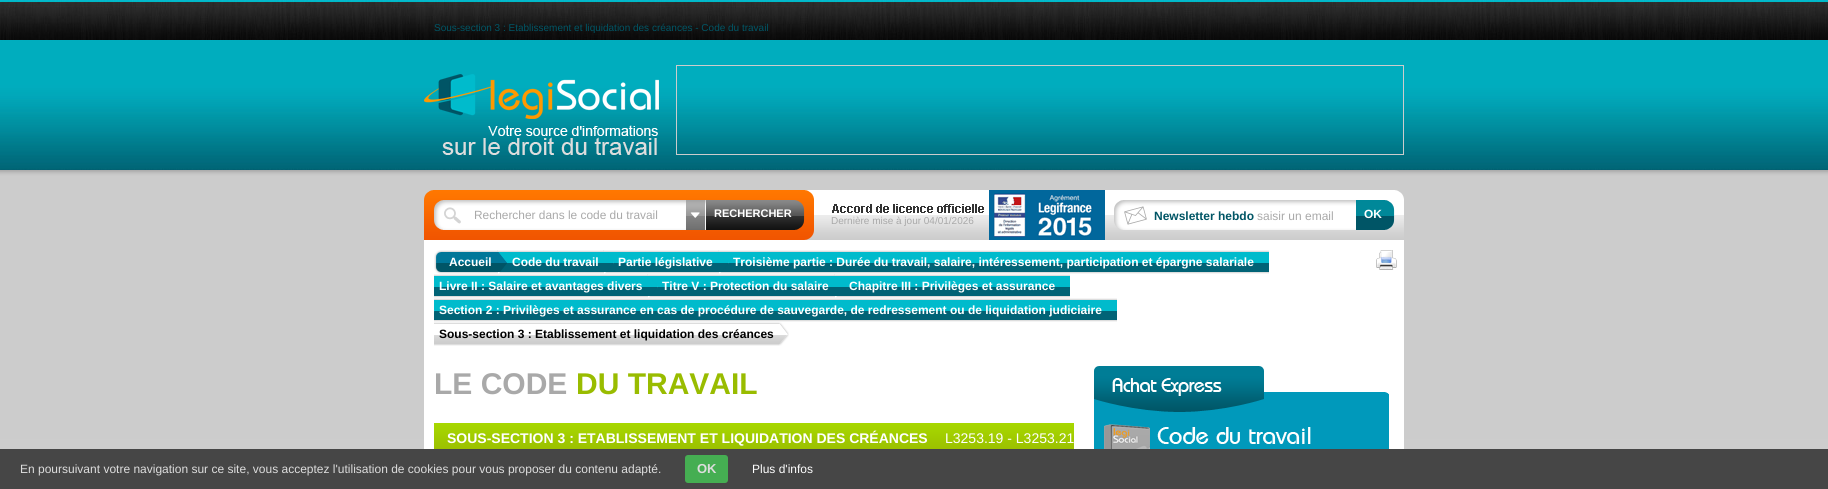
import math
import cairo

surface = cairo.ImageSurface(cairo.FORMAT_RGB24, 1828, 489)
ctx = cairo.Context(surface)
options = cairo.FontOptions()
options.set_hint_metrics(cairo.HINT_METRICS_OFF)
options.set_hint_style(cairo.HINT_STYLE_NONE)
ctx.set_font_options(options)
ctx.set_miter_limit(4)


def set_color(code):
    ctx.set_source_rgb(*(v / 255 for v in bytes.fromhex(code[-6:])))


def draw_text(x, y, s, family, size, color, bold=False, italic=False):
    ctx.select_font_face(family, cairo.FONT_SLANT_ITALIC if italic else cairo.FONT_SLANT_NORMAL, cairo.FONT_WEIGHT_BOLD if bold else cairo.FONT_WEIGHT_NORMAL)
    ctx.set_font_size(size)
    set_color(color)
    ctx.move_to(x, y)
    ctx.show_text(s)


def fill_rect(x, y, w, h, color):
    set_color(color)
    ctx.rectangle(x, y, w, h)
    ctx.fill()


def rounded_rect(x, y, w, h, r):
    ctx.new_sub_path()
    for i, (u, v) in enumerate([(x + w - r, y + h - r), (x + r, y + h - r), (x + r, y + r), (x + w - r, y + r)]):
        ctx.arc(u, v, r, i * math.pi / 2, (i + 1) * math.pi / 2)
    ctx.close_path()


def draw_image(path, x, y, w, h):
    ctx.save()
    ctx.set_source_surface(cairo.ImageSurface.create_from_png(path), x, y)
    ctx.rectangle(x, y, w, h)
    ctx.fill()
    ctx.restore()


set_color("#ffffff")
ctx.paint()
draw_image("assets/img1.png", 0, 0, 1828, 170)
draw_text(434, 31, "Sous-section 3 : Etablissement et liquidation des créances - Code du travail", "Liberation Sans", 10, "#005565")
draw_image("assets/img2.png", 424, 74, 235, 81)
ctx.rectangle(676.5, 65.5, 727, 89)
set_color("#cccccc")
ctx.set_line_width(1)
ctx.stroke()
draw_image("assets/img3.png", 0, 170, 1828, 279)
fill_rect(424, 240, 980, 209, "#ffffff")
draw_image("assets/img4.png", 424, 190, 980, 50)
draw_text(474, 219, "Rechercher dans le code du travail", "Liberation Sans", 11.9, "#a9a9a9")
draw_text(714, 217, "RECHERCHER", "Liberation Sans", 11, "#ffffff", bold=True)
draw_text(831, 224, "Dernière mise à jour 04/01/2026", "Liberation Sans", 10, "#a9a9a9")
draw_text(1154, 220, "Newsletter hebdo", "Liberation Sans", 12, "#005565", bold=True)
draw_text(1257, 220, "saisir un email", "Liberation Sans", 12, "#a9a9a9")
draw_text(1364, 218, "OK", "Liberation Sans", 11.9, "#ffffff", bold=True)
draw_image("assets/img5.png", 434, 250, 73, 24)
draw_text(449, 266, "Accueil", "Liberation Sans", 12, "#ffffff", bold=True)
draw_image("assets/img6.png", 497, 250, 116, 24)
draw_text(512, 266, "Code du travail", "Liberation Sans", 12, "#ffffff", bold=True)
draw_image("assets/img7.png", 603, 250, 125, 24)
draw_text(618, 266, "Partie législative", "Liberation Sans", 12, "#ffffff", bold=True)
draw_image("assets/img8.png", 718, 250, 551, 24)
draw_text(733, 266, "Troisième partie : Durée du travail, salaire, intéressement, participation et épargne salariale", "Liberation Sans", 12, "#ffffff", bold=True)
draw_image("assets/img9.png", 1376, 250, 21, 20)
draw_image("assets/img10.png", 434, 274, 223, 24)
draw_text(439, 290, "Livre II : Salaire et avantages divers", "Liberation Sans", 12, "#ffffff", bold=True)
draw_image("assets/img11.png", 647, 274, 197, 24)
draw_text(662, 290, "Titre V : Protection du salaire", "Liberation Sans", 12, "#ffffff", bold=True)
draw_image("assets/img12.png", 834, 274, 236, 24)
draw_text(849, 290, "Chapitre III : Privilèges et assurance", "Liberation Sans", 12, "#ffffff", bold=True)
draw_image("assets/img13.png", 434, 298, 683, 24)
draw_text(439, 314, "Section 2 : Privilèges et assurance en cas de procédure de sauvegarde, de redressement ou de liquidation judiciaire", "Liberation Sans", 12, "#ffffff", bold=True)
draw_image("assets/img14.png", 434, 322, 345, 24)
draw_text(439, 338, "Sous-section 3 : Etablissement et liquidation des créances", "Liberation Sans", 12, "#000000", bold=True)
draw_image("assets/img15.png", 779, 322, 10, 24)
draw_text(434, 394, "LE CODE", "Liberation Sans", 30, "#a9a9a9", bold=True)
draw_text(576, 394, "DU TRAVAIL", "Liberation Sans", 30, "#99bc00", bold=True)
draw_image("assets/img16.png", 434, 423, 640, 26)
draw_text(447, 443, "SOUS-SECTION 3 : ETABLISSEMENT ET LIQUIDATION DES CRÉANCES", "Liberation Sans", 14, "#ffffff", bold=True)
draw_text(945, 443, "L3253.19 - L3253.21", "Liberation Sans", 14, "#ffffff")
draw_image("assets/img17.png", 1094, 366, 295, 46)
fill_rect(1094, 412, 295, 37, "#0099bb")
draw_image("assets/img18.png", 1104, 424, 207, 25)
fill_rect(0, 449, 1828, 40, "#464646")
draw_text(20, 473, "En poursuivant votre navigation sur ce site, vous acceptez l'utilisation de cookies pour vous proposer du contenu adapté.", "Liberation Sans", 12, "#dddddd")
set_color("#45ae52")
rounded_rect(685, 455, 43, 28, 3)
ctx.fill()
draw_text(697, 473, "OK", "Liberation Sans", 13, "#dddddd", bold=True)
draw_text(752, 473, "Plus d'infos", "Liberation Sans", 12, "#ffffff")
surface.write_to_png("output.png")
